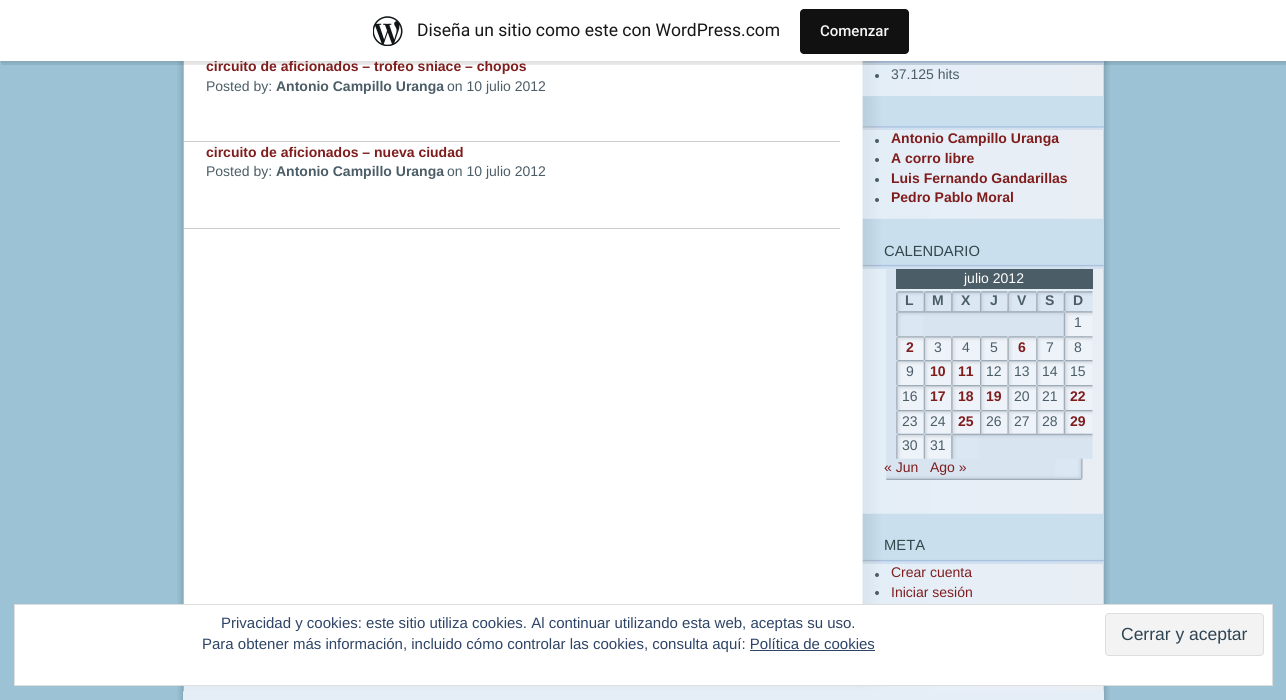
import math
import cairo

surface = cairo.ImageSurface(cairo.FORMAT_RGB24, 1286, 700)
ctx = cairo.Context(surface)
options = cairo.FontOptions()
options.set_hint_metrics(cairo.HINT_METRICS_OFF)
options.set_hint_style(cairo.HINT_STYLE_NONE)
ctx.set_font_options(options)
ctx.set_miter_limit(4)


def set_color(code):
    ctx.set_source_rgb(*(v / 255 for v in bytes.fromhex(code[-6:])))


def draw_text(x, y, s, family, size, color, bold=False, italic=False):
    ctx.select_font_face(family, cairo.FONT_SLANT_ITALIC if italic else cairo.FONT_SLANT_NORMAL, cairo.FONT_WEIGHT_BOLD if bold else cairo.FONT_WEIGHT_NORMAL)
    ctx.set_font_size(size)
    set_color(color)
    ctx.move_to(x, y)
    ctx.show_text(s)


def fill_rect(x, y, w, h, color):
    set_color(color)
    ctx.rectangle(x, y, w, h)
    ctx.fill()


def rounded_rect(x, y, w, h, r):
    ctx.new_sub_path()
    for i, (u, v) in enumerate([(x + w - r, y + h - r), (x + r, y + h - r), (x + r, y + r), (x + w - r, y + r)]):
        ctx.arc(u, v, r, i * math.pi / 2, (i + 1) * math.pi / 2)
    ctx.close_path()


def draw_shadow(x, y, w, h, r, blur, alpha):
    ctx.push_group_with_content(cairo.CONTENT_ALPHA)
    ctx.set_operator(cairo.OPERATOR_SOURCE)
    for i in range(15, -16, -2):
        e = blur * i / 6
        if min(w, h) + 2 * e > 0:
            ctx.set_source_rgba(0, 0, 0, alpha * math.erfc((i - 1) / 8.5) / 2)
            rounded_rect(x - e, y - e, w + 2 * e, h + 2 * e, max(0, min(r + e + blur * .6, min(w, h) / 2 + e)))
            ctx.fill()
    ctx.mask(ctx.pop_group())


def draw_image(path, x, y, w, h):
    ctx.save()
    ctx.set_source_surface(cairo.ImageSurface.create_from_png(path), x, y)
    ctx.rectangle(x, y, w, h)
    ctx.fill()
    ctx.restore()


set_color("#9bc3d5")
ctx.paint()
draw_image("assets/img2.png", 177, 61, 933, 639)
draw_image("assets/img3.png", 862, 61, 242, 4)
set_color("#000000")
draw_shadow(0, 1, 1286, 62, 0, 1, 0.05)
ctx.set_source_rgba(0, 0, 0, 0.08)
ctx.new_path()
ctx.move_to(1, 61)
ctx.line_to(1, 65)
ctx.line_to(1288, 65)
ctx.line_to(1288, 4)
ctx.line_to(1286, 4)
ctx.line_to(1286, 61)
ctx.close_path()
ctx.fill()
draw_text(206, 71, "circuito de aficionados – trofeo sniace – chopos", "Liberation Sans", 14, "#7f1d1d", bold=True)
fill_rect(0, 0, 1286, 61, "#ffffff")
draw_image("assets/img1.png", 373, 16, 30, 30)
draw_text(417, 36, "Diseña un sitio como este con WordPress.com", "Roboto", 17.5, "#171717")
set_color("#111111")
rounded_rect(800, 9, 109, 45, 4)
ctx.fill()
draw_text(820, 36, "Comenzar", "Roboto Medium", 15, "#f6f7f7")
fill_rect(184, 141, 656, 1, "#cccccc")
draw_text(206, 91, "Posted by:", "Liberation Sans", 14, "#4b5d67")
draw_text(276, 91, "Antonio Campillo Uranga", "Liberation Sans", 14, "#4b5d67", bold=True)
draw_text(447, 91, "on 10 julio 2012", "Liberation Sans", 14, "#4b5d67")
fill_rect(184, 228, 656, 1, "#cccccc")
draw_text(206, 157, "circuito de aficionados – nueva ciudad", "Liberation Sans", 14, "#7f1d1d", bold=True)
draw_text(206, 176, "Posted by:", "Liberation Sans", 14, "#4b5d67")
draw_text(276, 176, "Antonio Campillo Uranga", "Liberation Sans", 14, "#4b5d67", bold=True)
draw_text(447, 176, "on 10 julio 2012", "Liberation Sans", 14, "#4b5d67")
ctx.new_path()
ctx.arc(877, 76, 2, 0, 2 * math.pi)
ctx.fill()
draw_text(891, 79, "37.125 hits", "Liberation Sans", 14, "#4b5d67")
fill_rect(863, 96, 241, 34, "#cadfed")
draw_image("assets/img4.png", 862, 96, 242, 34)
set_color("#4b5d67")
ctx.arc(877, 141, 2, 0, 2 * math.pi)
ctx.fill()
draw_text(891, 143, "Antonio Campillo Uranga", "Liberation Sans", 14, "#7f1d1d", bold=True)
set_color("#4b5d67")
ctx.new_path()
ctx.arc(877, 160, 2, 0, 2 * math.pi)
ctx.fill()
draw_text(891, 163, "A corro libre", "Liberation Sans", 14, "#7f1d1d", bold=True)
set_color("#4b5d67")
ctx.new_path()
ctx.arc(877, 180, 2, 0, 2 * math.pi)
ctx.fill()
draw_text(891, 183, "Luis Fernando Gandarillas", "Liberation Sans", 14, "#7f1d1d", bold=True)
set_color("#4b5d67")
ctx.new_path()
ctx.arc(877, 200, 2, 0, 2 * math.pi)
ctx.fill()
draw_text(891, 202, "Pedro Pablo Moral", "Liberation Sans", 14, "#7f1d1d", bold=True)
fill_rect(863, 219, 241, 50, "#cadfed")
draw_image("assets/img5.png", 862, 218, 242, 51)
draw_text(884, 256, "CALENDARIO", "Liberation Sans", 14.75, "#32474b")
draw_image("assets/img6.png", 886, 268, 197, 212)
fill_rect(896, 269, 197, 20, "#4b5d67")
fill_rect(896, 289, 197, 3, "#e6eef7")
draw_text(964, 283, "julio 2012", "Liberation Sans", 14, "#ffffff")
draw_image("assets/img7.png", 896, 291, 28, 21)
draw_text(905, 305, "L", "Liberation Sans", 14, "#4b5d67", bold=True)
draw_image("assets/img8.png", 923, 291, 29, 21)
draw_text(932, 305, "M", "Liberation Sans", 14, "#4b5d67", bold=True)
draw_image("assets/img9.png", 951, 291, 29, 21)
draw_text(961, 305, "X", "Liberation Sans", 14, "#4b5d67", bold=True)
draw_image("assets/img10.png", 980, 291, 28, 21)
draw_text(990, 305, "J", "Liberation Sans", 14, "#4b5d67", bold=True)
draw_image("assets/img11.png", 1007, 291, 30, 21)
draw_text(1017, 305, "V", "Liberation Sans", 14, "#4b5d67", bold=True)
draw_image("assets/img12.png", 1036, 291, 28, 21)
draw_text(1045, 305, "S", "Liberation Sans", 14, "#4b5d67", bold=True)
draw_image("assets/img13.png", 1063, 291, 30, 21)
draw_text(1073, 305, "D", "Liberation Sans", 14, "#4b5d67", bold=True)
draw_image("assets/img14.png", 896, 311, 168, 26)
draw_image("assets/img15.png", 1063, 311, 30, 26)
draw_text(1074, 327, "1", "Liberation Sans", 14, "#4b5d67")
draw_image("assets/img16.png", 896, 336, 28, 24)
draw_text(906, 352, "2", "Liberation Sans", 14, "#7f1d1d", bold=True)
draw_image("assets/img17.png", 923, 336, 29, 24)
draw_text(934, 352, "3", "Liberation Sans", 14, "#4b5d67")
draw_image("assets/img18.png", 951, 336, 29, 24)
draw_text(962, 352, "4", "Liberation Sans", 14, "#4b5d67")
draw_image("assets/img19.png", 980, 336, 28, 24)
draw_text(990, 352, "5", "Liberation Sans", 14, "#4b5d67")
draw_image("assets/img20.png", 1007, 336, 30, 24)
draw_text(1018, 352, "6", "Liberation Sans", 14, "#7f1d1d", bold=True)
draw_image("assets/img21.png", 1036, 336, 28, 24)
draw_text(1046, 352, "7", "Liberation Sans", 14, "#4b5d67")
draw_image("assets/img22.png", 1063, 336, 30, 24)
draw_text(1074, 352, "8", "Liberation Sans", 14, "#4b5d67")
draw_image("assets/img23.png", 896, 360, 28, 25)
draw_text(906, 376, "9", "Liberation Sans", 14, "#4b5d67")
draw_image("assets/img24.png", 923, 360, 29, 25)
draw_text(930, 376, "10", "Liberation Sans", 14, "#7f1d1d", bold=True)
draw_image("assets/img25.png", 951, 360, 29, 25)
draw_text(958, 376, "11", "Liberation Sans", 14, "#7f1d1d", bold=True)
draw_image("assets/img26.png", 980, 360, 28, 25)
draw_text(986, 376, "12", "Liberation Sans", 14, "#4b5d67")
draw_image("assets/img27.png", 1007, 360, 30, 25)
draw_text(1014, 376, "13", "Liberation Sans", 14, "#4b5d67")
draw_image("assets/img28.png", 1036, 360, 28, 25)
draw_text(1042, 376, "14", "Liberation Sans", 14, "#4b5d67")
draw_image("assets/img29.png", 1063, 360, 30, 25)
draw_text(1070, 376, "15", "Liberation Sans", 14, "#4b5d67")
draw_image("assets/img23.png", 896, 385, 28, 25)
draw_text(902, 401, "16", "Liberation Sans", 14, "#4b5d67")
draw_image("assets/img24.png", 923, 385, 29, 25)
draw_text(930, 401, "17", "Liberation Sans", 14, "#7f1d1d", bold=True)
draw_image("assets/img25.png", 951, 385, 29, 25)
draw_text(958, 401, "18", "Liberation Sans", 14, "#7f1d1d", bold=True)
draw_image("assets/img26.png", 980, 385, 28, 25)
draw_text(986, 401, "19", "Liberation Sans", 14, "#7f1d1d", bold=True)
draw_image("assets/img27.png", 1007, 385, 30, 25)
draw_text(1014, 401, "20", "Liberation Sans", 14, "#4b5d67")
draw_image("assets/img28.png", 1036, 385, 28, 25)
draw_text(1042, 401, "21", "Liberation Sans", 14, "#4b5d67")
draw_image("assets/img29.png", 1063, 385, 30, 25)
draw_text(1070, 401, "22", "Liberation Sans", 14, "#7f1d1d", bold=True)
draw_image("assets/img30.png", 896, 410, 28, 24)
draw_text(902, 426, "23", "Liberation Sans", 14, "#4b5d67")
draw_image("assets/img31.png", 923, 410, 29, 24)
draw_text(930, 426, "24", "Liberation Sans", 14, "#4b5d67")
draw_image("assets/img32.png", 951, 410, 29, 24)
draw_text(958, 426, "25", "Liberation Sans", 14, "#7f1d1d", bold=True)
draw_image("assets/img33.png", 980, 410, 28, 24)
draw_text(986, 426, "26", "Liberation Sans", 14, "#4b5d67")
draw_image("assets/img34.png", 1007, 410, 30, 24)
draw_text(1014, 426, "27", "Liberation Sans", 14, "#4b5d67")
draw_image("assets/img35.png", 1036, 410, 28, 24)
draw_text(1042, 426, "28", "Liberation Sans", 14, "#4b5d67")
draw_image("assets/img36.png", 1063, 410, 30, 24)
draw_text(1070, 426, "29", "Liberation Sans", 14, "#7f1d1d", bold=True)
draw_image("assets/img37.png", 896, 433, 28, 26)
draw_text(902, 450, "30", "Liberation Sans", 14, "#4b5d67")
draw_image("assets/img38.png", 923, 433, 29, 26)
draw_text(930, 450, "31", "Liberation Sans", 14, "#4b5d67")
draw_image("assets/img39.png", 951, 433, 142, 26)
draw_text(884, 472, "« Jun", "Liberation Sans", 14, "#7f1d1d")
draw_text(930, 472, "Ago »", "Liberation Sans", 14, "#7f1d1d")
fill_rect(863, 514, 241, 50, "#cadfed")
draw_image("assets/img5.png", 862, 513, 242, 51)
draw_text(884, 550, "META", "Liberation Sans", 14.75, "#32474b")
set_color("#4b5d67")
ctx.new_path()
ctx.arc(877, 575, 2, 0, 2 * math.pi)
ctx.fill()
draw_text(891, 577, "Crear cuenta", "Liberation Sans", 14, "#7f1d1d")
set_color("#4b5d67")
ctx.new_path()
ctx.arc(877, 593, 2, 0, 2 * math.pi)
ctx.fill()
draw_text(891, 597, "Iniciar sesión", "Liberation Sans", 14, "#7f1d1d")
fill_rect(183, 691, 921, 9, "#e5eef7")
draw_image("assets/img40.png", 183, 686, 921, 6)
set_color("#ffffff")
ctx.rectangle(14.5, 604.5, 1258, 81)
ctx.fill_preserve()
set_color("#dedede")
ctx.set_line_width(1)
ctx.stroke()
draw_text(221, 628, "Privacidad y cookies: este sitio utiliza cookies. Al continuar utilizando esta web, aceptas su uso.", "Liberation Sans", 15, "#2e4467")
draw_text(202, 649, "Para obtener más información, incluido cómo controlar las cookies, consulta aquí: Política de cookies", "Liberation Sans", 15, "#2e4467")
set_color("#f3f3f3")
rounded_rect(1105.5, 613.5, 158, 42, 3.5)
ctx.fill_preserve()
set_color("#dedede")
ctx.stroke()
draw_text(1121, 640, "Cerrar y aceptar", "Liberation Sans", 17.5, "#2e4453")
fill_rect(750, 650, 125, 1, "#2e4467")
surface.write_to_png("output.png")
